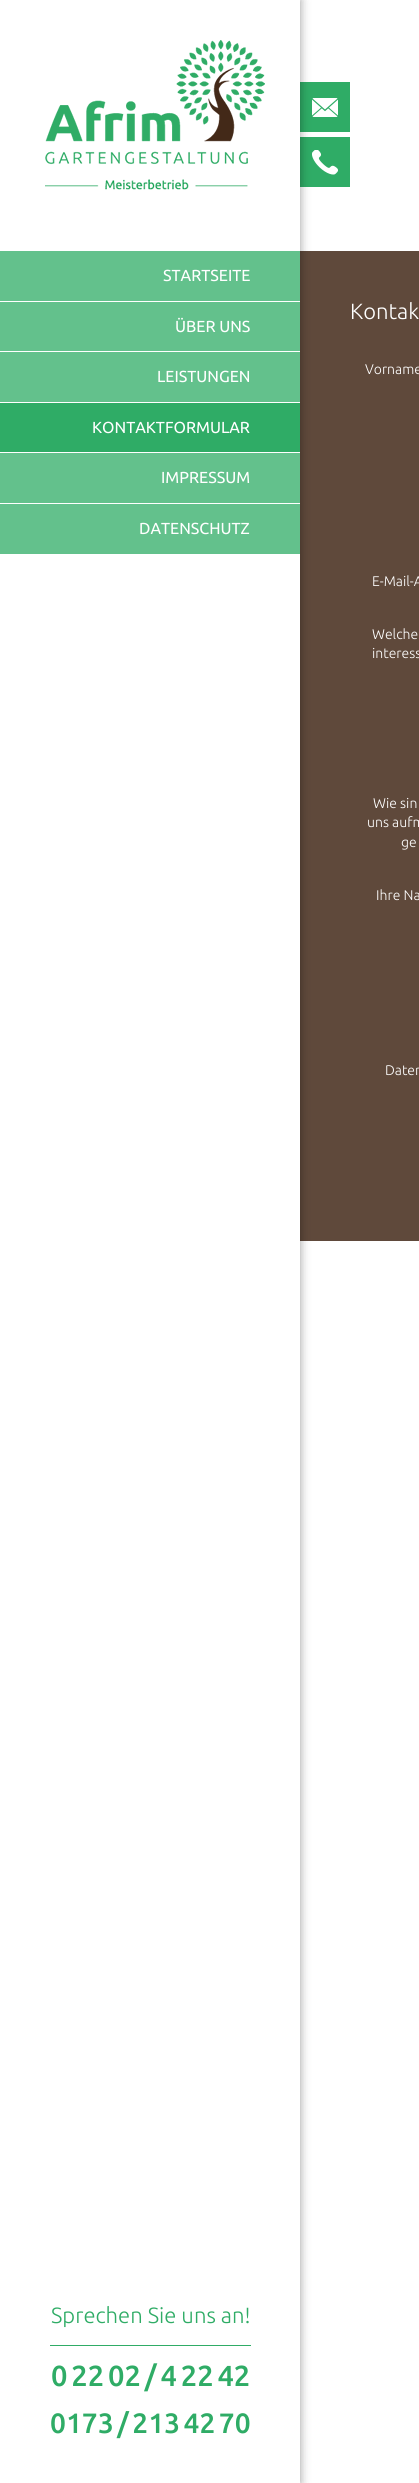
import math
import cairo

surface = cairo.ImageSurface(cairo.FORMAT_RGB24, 419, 2483)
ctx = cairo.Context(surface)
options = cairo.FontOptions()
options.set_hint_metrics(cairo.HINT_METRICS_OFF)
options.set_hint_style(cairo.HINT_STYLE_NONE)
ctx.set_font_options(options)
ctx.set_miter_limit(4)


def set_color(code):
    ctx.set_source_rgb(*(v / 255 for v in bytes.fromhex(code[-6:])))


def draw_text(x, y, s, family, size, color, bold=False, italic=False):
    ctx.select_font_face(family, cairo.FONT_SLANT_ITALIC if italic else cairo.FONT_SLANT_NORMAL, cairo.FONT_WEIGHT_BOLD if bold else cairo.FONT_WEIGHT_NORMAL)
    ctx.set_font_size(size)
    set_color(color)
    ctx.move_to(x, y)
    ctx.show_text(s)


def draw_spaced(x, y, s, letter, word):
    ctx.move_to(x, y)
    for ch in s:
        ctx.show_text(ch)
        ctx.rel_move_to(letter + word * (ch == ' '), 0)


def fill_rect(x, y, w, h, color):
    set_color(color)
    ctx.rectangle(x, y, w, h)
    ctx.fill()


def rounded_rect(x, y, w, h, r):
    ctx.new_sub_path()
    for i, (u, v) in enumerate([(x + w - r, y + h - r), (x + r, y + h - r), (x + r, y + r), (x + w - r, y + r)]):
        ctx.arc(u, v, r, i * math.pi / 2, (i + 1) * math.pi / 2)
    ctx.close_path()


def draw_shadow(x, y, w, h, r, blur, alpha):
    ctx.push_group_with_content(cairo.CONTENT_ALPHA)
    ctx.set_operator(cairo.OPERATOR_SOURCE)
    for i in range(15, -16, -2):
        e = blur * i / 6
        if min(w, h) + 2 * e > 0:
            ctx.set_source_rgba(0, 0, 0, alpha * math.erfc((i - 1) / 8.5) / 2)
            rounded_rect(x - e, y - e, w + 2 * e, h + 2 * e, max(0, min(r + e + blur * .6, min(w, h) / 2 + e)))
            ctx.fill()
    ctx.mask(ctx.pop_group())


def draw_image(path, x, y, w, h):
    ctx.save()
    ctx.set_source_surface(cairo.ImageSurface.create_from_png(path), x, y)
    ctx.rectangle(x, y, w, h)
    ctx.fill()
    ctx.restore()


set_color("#ffffff")
ctx.paint()
fill_rect(300, 82, 50, 50, "#2fac66")
draw_image("assets/img1.png", 312, 98, 26, 19)
fill_rect(300, 137, 50, 50, "#2fac66")
draw_image("assets/img2.png", 312, 150, 26, 25)
fill_rect(300, 251, 119, 990, "#5f493b")
set_color("#000000")
draw_shadow(0, 0, 300, 2483, 0, 5, 0.4)
fill_rect(0, 0, 300, 2483, "#ffffff")
draw_image("assets/img3.png", 45, 40, 220, 150)
fill_rect(0, 251, 300, 50, "#63c18c")
draw_text(163, 281, "STARTSEITE", "Ubuntu", 16, "#ffffff")
fill_rect(0, 302, 300, 49, "#63c18c")
draw_text(175, 332, "ÜBER UNS", "Ubuntu", 16, "#ffffff")
fill_rect(0, 352, 300, 50, "#63c18c")
draw_text(157, 382, "LEISTUNGEN", "Ubuntu", 16, "#ffffff")
fill_rect(0, 403, 300, 49, "#2fac66")
draw_text(92, 433, "KONTAKTFORMULAR", "Ubuntu", 16, "#ffffff")
fill_rect(0, 453, 300, 50, "#63c18c")
draw_text(161, 483, "IMPRESSUM", "Ubuntu", 16, "#ffffff")
fill_rect(0, 504, 300, 50, "#63c18c")
draw_text(139, 534, "DATENSCHUTZ", "Ubuntu", 16, "#ffffff")
draw_text(51, 2323, "Sprechen Sie uns an!", "Ubuntu Light", 22, "#2fac66")
fill_rect(50, 2345, 201, 1, "#2fac66")
ctx.select_font_face("Ubuntu Medium")
ctx.set_font_size(29)
draw_spaced(51, 2386, "0 22 02 / 4 22 42", 0, -3)
ctx.set_font_size(28)
draw_spaced(50, 2433, "0173 / 213 42 70", 0, -3)
draw_text(350, 319, "Kontak", "Ubuntu Light", 22, "#ffffff")
draw_text(365, 374, "Vorname", "Ubuntu Light", 14, "#ffffff")
draw_text(372, 586, "E-Mail-A", "Ubuntu Light", 14, "#ffffff")
draw_text(372, 639, "Welche", "Ubuntu Light", 14, "#ffffff")
draw_text(372, 658, "interess", "Ubuntu Light", 14, "#ffffff")
draw_text(373, 808, "Wie sin", "Ubuntu Light", 14, "#ffffff")
draw_text(367, 827, "uns aufm", "Ubuntu Light", 14, "#ffffff")
draw_text(401, 847, "ge", "Ubuntu Light", 14, "#ffffff")
draw_text(376, 900, "Ihre Na", "Ubuntu Light", 14, "#ffffff")
draw_text(385, 1075, "Daten", "Ubuntu Light", 14, "#ffffff")
surface.write_to_png("output.png")
